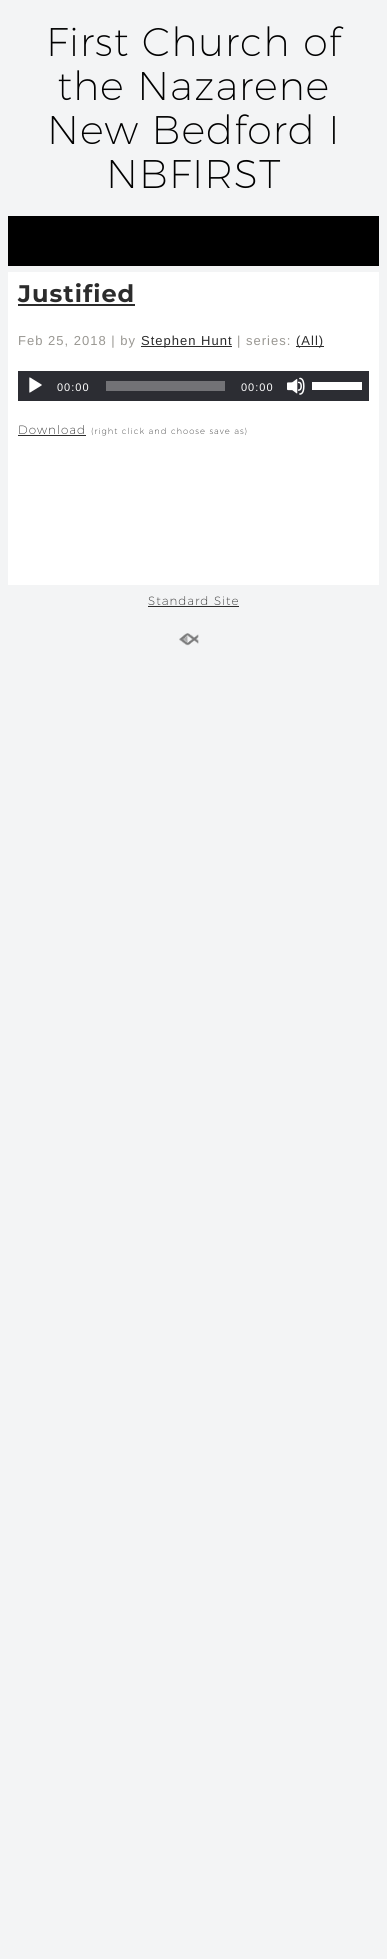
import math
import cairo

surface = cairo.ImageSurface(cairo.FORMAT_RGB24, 387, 1959)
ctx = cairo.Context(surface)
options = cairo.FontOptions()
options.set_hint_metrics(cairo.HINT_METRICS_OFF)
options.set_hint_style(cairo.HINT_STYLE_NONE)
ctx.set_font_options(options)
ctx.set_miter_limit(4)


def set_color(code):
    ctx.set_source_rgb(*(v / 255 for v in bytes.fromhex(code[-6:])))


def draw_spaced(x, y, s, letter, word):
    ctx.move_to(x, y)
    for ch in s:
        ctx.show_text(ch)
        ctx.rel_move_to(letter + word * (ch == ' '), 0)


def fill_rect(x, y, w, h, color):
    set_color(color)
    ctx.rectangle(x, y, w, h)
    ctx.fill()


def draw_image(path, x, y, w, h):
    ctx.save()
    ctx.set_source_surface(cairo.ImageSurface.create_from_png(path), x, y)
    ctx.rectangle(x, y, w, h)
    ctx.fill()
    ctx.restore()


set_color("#f3f4f5")
ctx.paint()
ctx.select_font_face("Montserrat ExtraLight")
ctx.set_font_size(40)
set_color("#000000")
draw_spaced(46, 56, "First Church of", 1, 0)
draw_spaced(57, 100, "the Nazarene", 1, 0)
draw_spaced(47, 144, "New Bedford I", 1, 0)
draw_spaced(106, 188, "NBFIRST", 1, 0)
fill_rect(8, 216, 371, 50, "#000000")
fill_rect(8, 272, 371, 313, "#ffffff")
ctx.select_font_face("Montserrat", cairo.FONT_SLANT_NORMAL, cairo.FONT_WEIGHT_BOLD)
ctx.set_font_size(24)
set_color("#2c2c2c")
draw_spaced(18, 302, "Justified", 1, 0)
fill_rect(18, 304, 117, 2, "#2c2c2c")
ctx.select_font_face("Liberation Sans")
ctx.set_font_size(13)
set_color("#999792")
draw_spaced(18, 345, "Feb 25, 2018 | by", 1, 0)
fill_rect(141, 346, 91, 1, "#2c2c2c")
draw_spaced(141, 345, "Stephen Hunt", 1, 0)
set_color("#999792")
draw_spaced(237, 345, "| series:", 1, 0)
fill_rect(296, 346, 28, 1, "#2c2c2c")
draw_spaced(296, 345, "(All)", 1, 0)
fill_rect(18, 371, 351, 30, "#2c2d33")
draw_image("assets/img1.png", 29, 377, 13, 16)
ctx.set_font_size(11)
set_color("#ffffff")
draw_spaced(57, 391, "00:00", 1, 0)
fill_rect(106, 381, 119, 10, "#727276")
set_color("#ffffff")
draw_spaced(241, 391, "00:00", 1, 0)
draw_image("assets/img2.png", 287, 377, 18, 18)
fill_rect(312, 382, 50, 8, "#ffffff")
ctx.select_font_face("Montserrat ExtraLight")
ctx.set_font_size(12)
set_color("#2c2c2c")
draw_spaced(18, 434, "Download", 1, 0)
fill_rect(18, 435, 68, 1, "#2c2c2c")
ctx.set_font_size(8.4)
draw_spaced(91, 434, "(right click and choose save as)", 1, 0)
ctx.set_font_size(12)
draw_spaced(148, 605, "Standard Site", 1, 0)
fill_rect(148, 606, 91, 1, "#2c2c2c")
draw_image("assets/img3.png", 179, 633, 20, 13)
surface.write_to_png("output.png")
